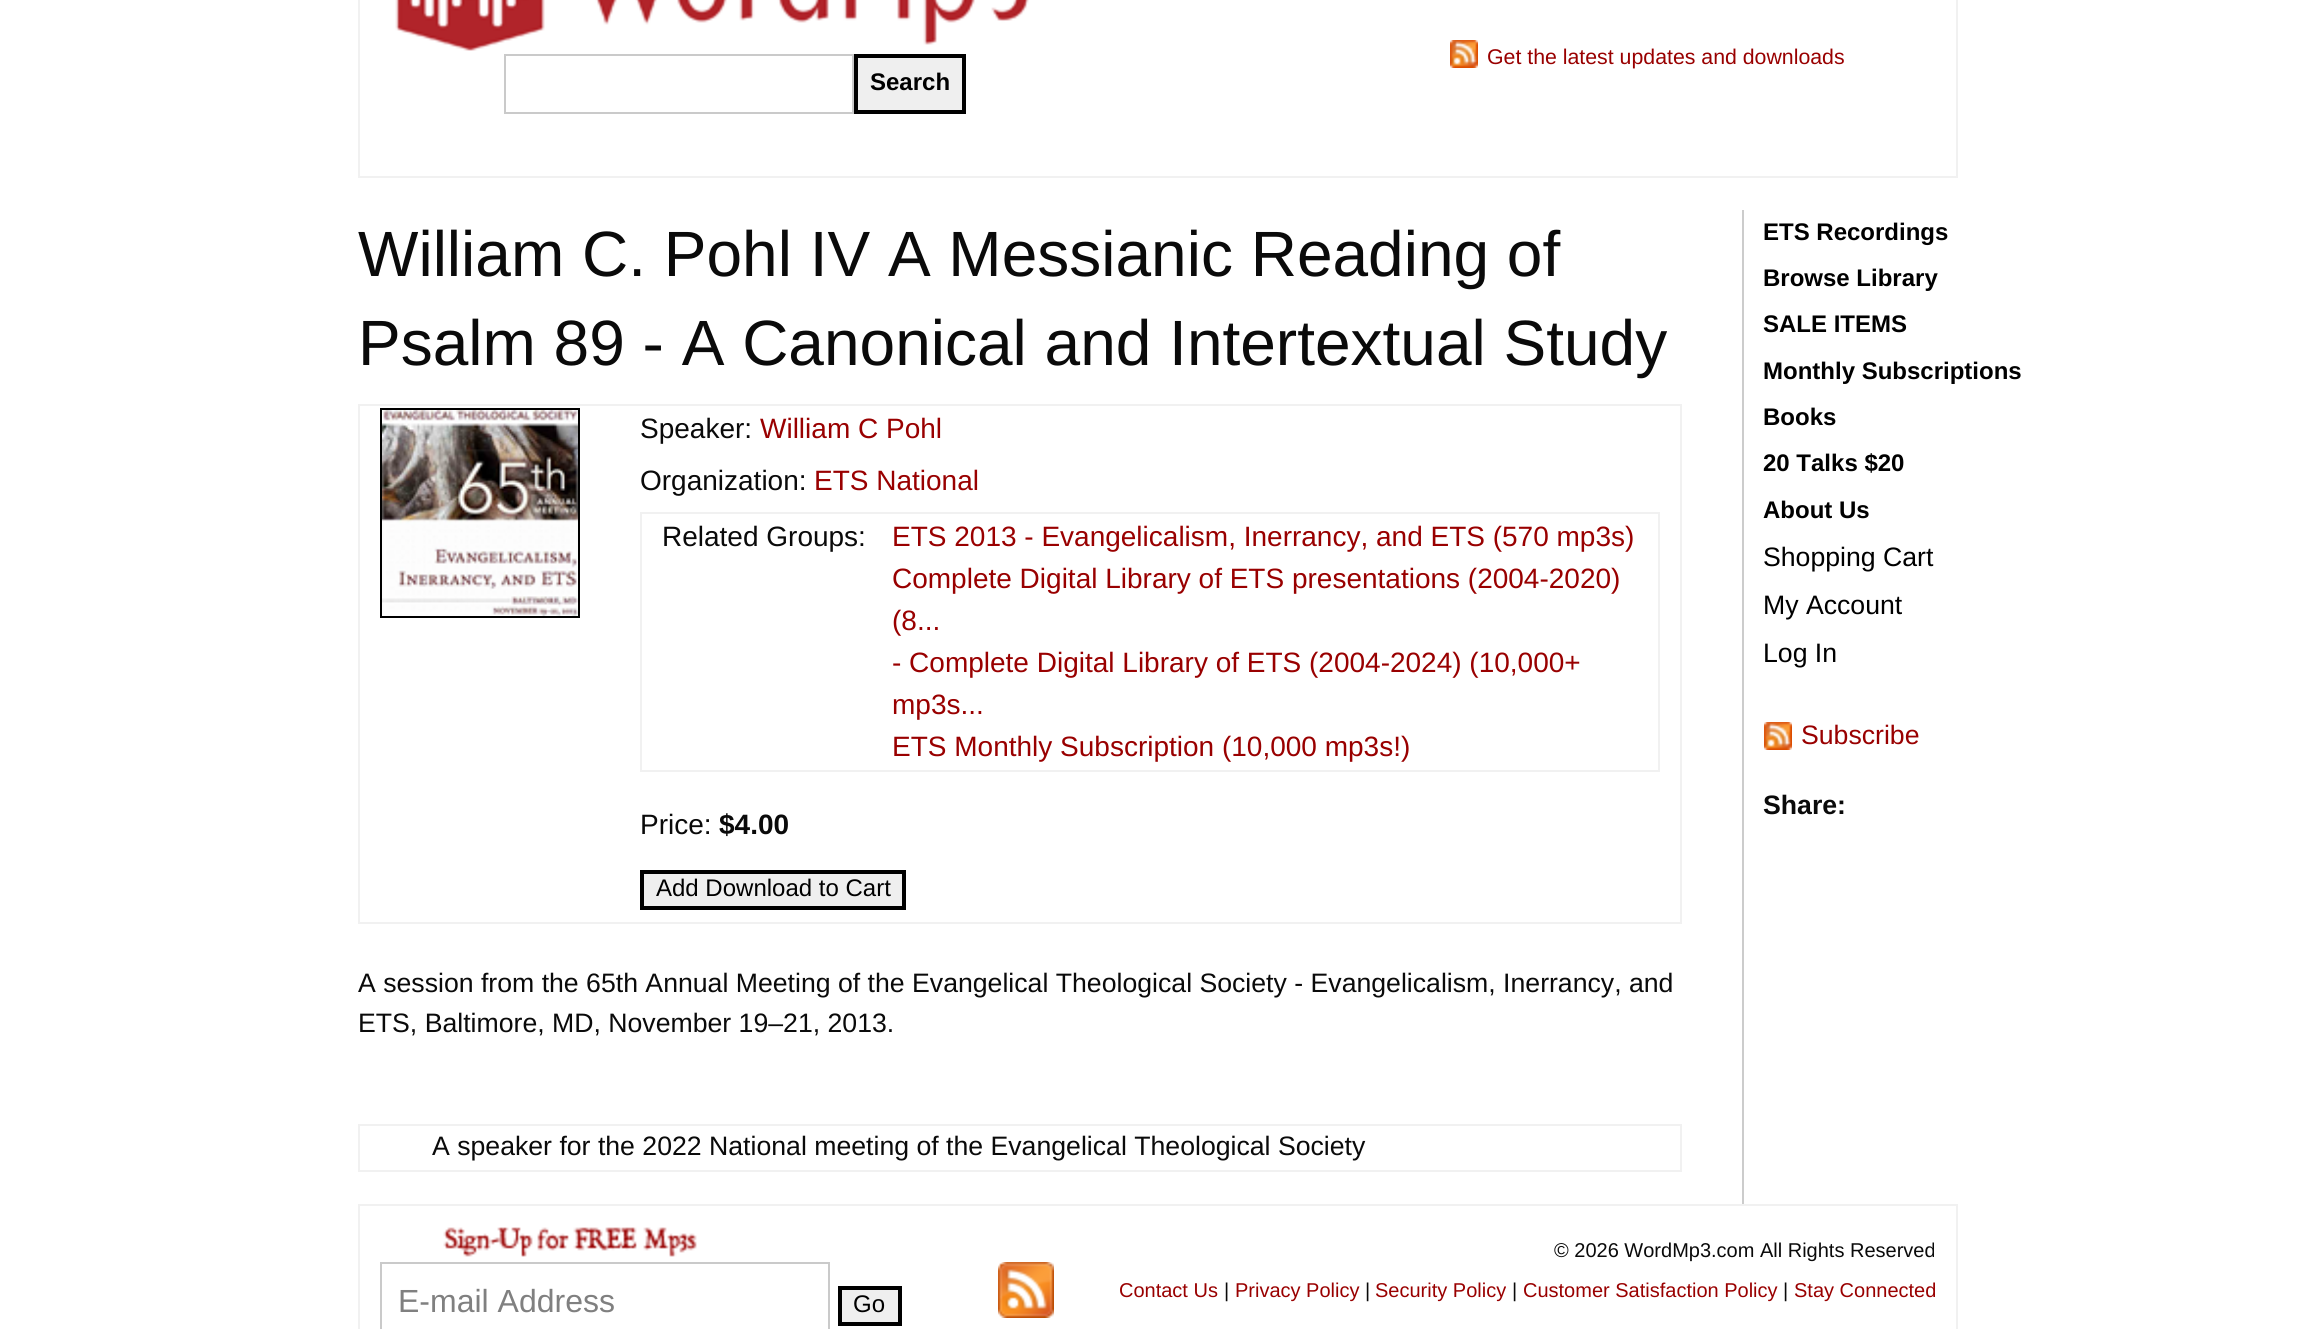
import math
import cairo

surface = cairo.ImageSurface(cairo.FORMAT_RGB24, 2316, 1329)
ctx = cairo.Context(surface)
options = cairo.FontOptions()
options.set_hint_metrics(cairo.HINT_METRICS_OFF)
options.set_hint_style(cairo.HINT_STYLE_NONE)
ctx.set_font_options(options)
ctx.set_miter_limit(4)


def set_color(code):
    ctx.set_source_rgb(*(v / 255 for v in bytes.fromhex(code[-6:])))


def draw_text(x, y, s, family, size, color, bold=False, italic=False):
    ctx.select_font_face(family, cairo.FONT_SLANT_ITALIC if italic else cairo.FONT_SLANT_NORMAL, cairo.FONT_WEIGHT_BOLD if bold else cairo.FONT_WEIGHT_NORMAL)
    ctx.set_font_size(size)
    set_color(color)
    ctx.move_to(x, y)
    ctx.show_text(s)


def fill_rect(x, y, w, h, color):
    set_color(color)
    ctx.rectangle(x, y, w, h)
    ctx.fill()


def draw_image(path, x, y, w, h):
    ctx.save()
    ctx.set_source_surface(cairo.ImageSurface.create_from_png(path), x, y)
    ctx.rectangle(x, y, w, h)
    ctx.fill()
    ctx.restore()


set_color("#ffffff")
ctx.paint()
fill_rect(1956, 0, 2, 178, "#f1f1f1")
fill_rect(358, 176, 1600, 2, "#f1f1f1")
fill_rect(358, 0, 2, 178, "#f1f1f1")
draw_image("assets/img1.png", 1450, 40, 28, 28)
draw_text(1487, 64, "Get the latest updates and downloads", "Liberation Sans", 21.3, "#990000")
draw_image("assets/img2.png", 395, 0, 634, 51)
ctx.rectangle(505, 55, 348, 58)
set_color("#cacaca")
ctx.stroke()
set_color("#efefef")
ctx.rectangle(856, 56, 108, 56)
ctx.fill_preserve()
set_color("#000000")
ctx.set_line_width(4)
ctx.stroke()
draw_text(870, 90, "Search", "Liberation Sans", 24, "#000000", bold=True)
draw_text(358, 276, "William C. Pohl IV A Messianic Reading of", "Liberation Sans", 64, "#0a0a0a")
draw_text(358, 365, "Psalm 89 - A Canonical and Intertextual Study", "Liberation Sans", 64, "#0a0a0a")
fill_rect(358, 404, 1324, 2, "#f1f1f1")
fill_rect(1680, 404, 2, 520, "#f1f1f1")
fill_rect(358, 922, 1324, 2, "#f1f1f1")
fill_rect(358, 404, 2, 520, "#f1f1f1")
ctx.rectangle(381, 409, 198, 208)
set_color("#000000")
ctx.set_line_width(2)
ctx.stroke()
draw_image("assets/img3.png", 382, 410, 196, 206)
draw_text(640, 438, "Speaker:", "Liberation Sans", 28, "#0a0a0a")
draw_text(760, 438, "William C Pohl", "Liberation Sans", 28, "#990000")
draw_text(640, 490, "Organization:", "Liberation Sans", 28, "#0a0a0a")
draw_text(814, 490, "ETS National", "Liberation Sans", 28, "#990000")
fill_rect(640, 512, 1020, 2, "#f1f1f1")
fill_rect(1658, 512, 2, 260, "#f1f1f1")
fill_rect(640, 770, 1020, 2, "#f1f1f1")
fill_rect(640, 512, 2, 260, "#f1f1f1")
draw_text(662, 546, "Related Groups:", "Liberation Sans", 28, "#0a0a0a")
draw_text(892, 546, "ETS 2013 - Evangelicalism, Inerrancy, and ETS (570 mp3s)", "Liberation Sans", 28, "#990000")
draw_text(892, 588, "Complete Digital Library of ETS presentations (2004-2020)", "Liberation Sans", 28, "#990000")
draw_text(892, 630, "(8...", "Liberation Sans", 28, "#990000")
draw_text(892, 672, "- Complete Digital Library of ETS (2004-2024) (10,000+", "Liberation Sans", 28, "#990000")
draw_text(892, 714, "mp3s...", "Liberation Sans", 28, "#990000")
draw_text(892, 756, "ETS Monthly Subscription (10,000 mp3s!)", "Liberation Sans", 28, "#990000")
draw_text(640, 834, "Price:", "Liberation Sans", 28, "#0a0a0a")
draw_text(719, 834, "$4.00", "Liberation Sans", 28, "#0a0a0a", bold=True)
set_color("#efefef")
ctx.rectangle(642, 872, 262, 36)
ctx.fill_preserve()
set_color("#000000")
ctx.set_line_width(4)
ctx.stroke()
draw_text(656, 896, "Add Download to Cart", "Liberation Sans", 24, "#000000")
draw_text(358, 992, "A session from the 65th Annual Meeting of the Evangelical Theological Society - Evangelicalism, Inerrancy, and", "Liberation Sans", 26.65, "#0a0a0a")
draw_text(358, 1032, "ETS, Baltimore, MD, November 19–21, 2013.", "Liberation Sans", 26.65, "#0a0a0a")
fill_rect(358, 1124, 1324, 2, "#f1f1f1")
fill_rect(1680, 1124, 2, 48, "#f1f1f1")
fill_rect(358, 1170, 1324, 2, "#f1f1f1")
fill_rect(358, 1124, 2, 48, "#f1f1f1")
draw_text(432, 1155, "A speaker for the 2022 National meeting of the Evangelical Theological Society", "Liberation Sans", 26.65, "#0a0a0a")
fill_rect(1742, 210, 2, 994, "#cccccc")
draw_text(1763, 240, "ETS Recordings", "Liberation Sans", 24, "#000000", bold=True)
draw_text(1763, 286, "Browse Library", "Liberation Sans", 24, "#000000", bold=True)
draw_text(1763, 332, "SALE ITEMS", "Liberation Sans", 24, "#000000", bold=True)
draw_text(1763, 379, "Monthly Subscriptions", "Liberation Sans", 24, "#000000", bold=True)
draw_text(1763, 425, "Books", "Liberation Sans", 24, "#000000", bold=True)
draw_text(1763, 471, "20 Talks $20", "Liberation Sans", 24, "#000000", bold=True)
draw_text(1763, 518, "About Us", "Liberation Sans", 24, "#000000", bold=True)
draw_text(1763, 566, "Shopping Cart", "Liberation Sans", 26.65, "#000000")
draw_text(1763, 614, "My Account", "Liberation Sans", 26.65, "#000000")
draw_text(1763, 662, "Log In", "Liberation Sans", 26.65, "#000000")
draw_image("assets/img1.png", 1764, 722, 28, 28)
draw_text(1801, 744, "Subscribe", "Liberation Sans", 26.65, "#990000")
draw_text(1763, 814, "Share:", "Liberation Sans", 26.65, "#0a0a0a", bold=True)
fill_rect(358, 1204, 1600, 2, "#f1f1f1")
fill_rect(1956, 1204, 2, 125, "#f1f1f1")
fill_rect(358, 1204, 2, 125, "#f1f1f1")
draw_image("assets/img4.png", 443, 1227, 254, 30)
ctx.rectangle(381, 1263, 448, 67)
set_color("#cacaca")
ctx.set_line_width(2)
ctx.stroke()
draw_text(398, 1312, "E-mail Address", "Liberation Sans", 32, "#808080")
set_color("#efefef")
ctx.rectangle(840, 1288, 60, 36)
ctx.fill_preserve()
set_color("#000000")
ctx.set_line_width(4)
ctx.stroke()
draw_text(853, 1312, "Go", "Liberation Sans", 24, "#000000")
draw_image("assets/img5.png", 998, 1262, 56, 56)
draw_text(1554, 1257, "© 2026 WordMp3.com All Rights Reserved", "Liberation Sans", 20, "#0a0a0a")
draw_text(1119, 1297, "Contact Us", "Liberation Sans", 20, "#990000")
draw_text(1224, 1297, "|", "Liberation Sans", 20, "#0a0a0a")
draw_text(1235, 1297, "Privacy Policy", "Liberation Sans", 20, "#990000")
draw_text(1365, 1297, "|", "Liberation Sans", 20, "#0a0a0a")
draw_text(1375, 1297, "Security Policy", "Liberation Sans", 20, "#990000")
draw_text(1512, 1297, "|", "Liberation Sans", 20, "#0a0a0a")
draw_text(1523, 1297, "Customer Satisfaction Policy", "Liberation Sans", 20, "#990000")
draw_text(1783, 1297, "|", "Liberation Sans", 20, "#0a0a0a")
draw_text(1794, 1297, "Stay Connected", "Liberation Sans", 20, "#990000")
surface.write_to_png("output.png")
